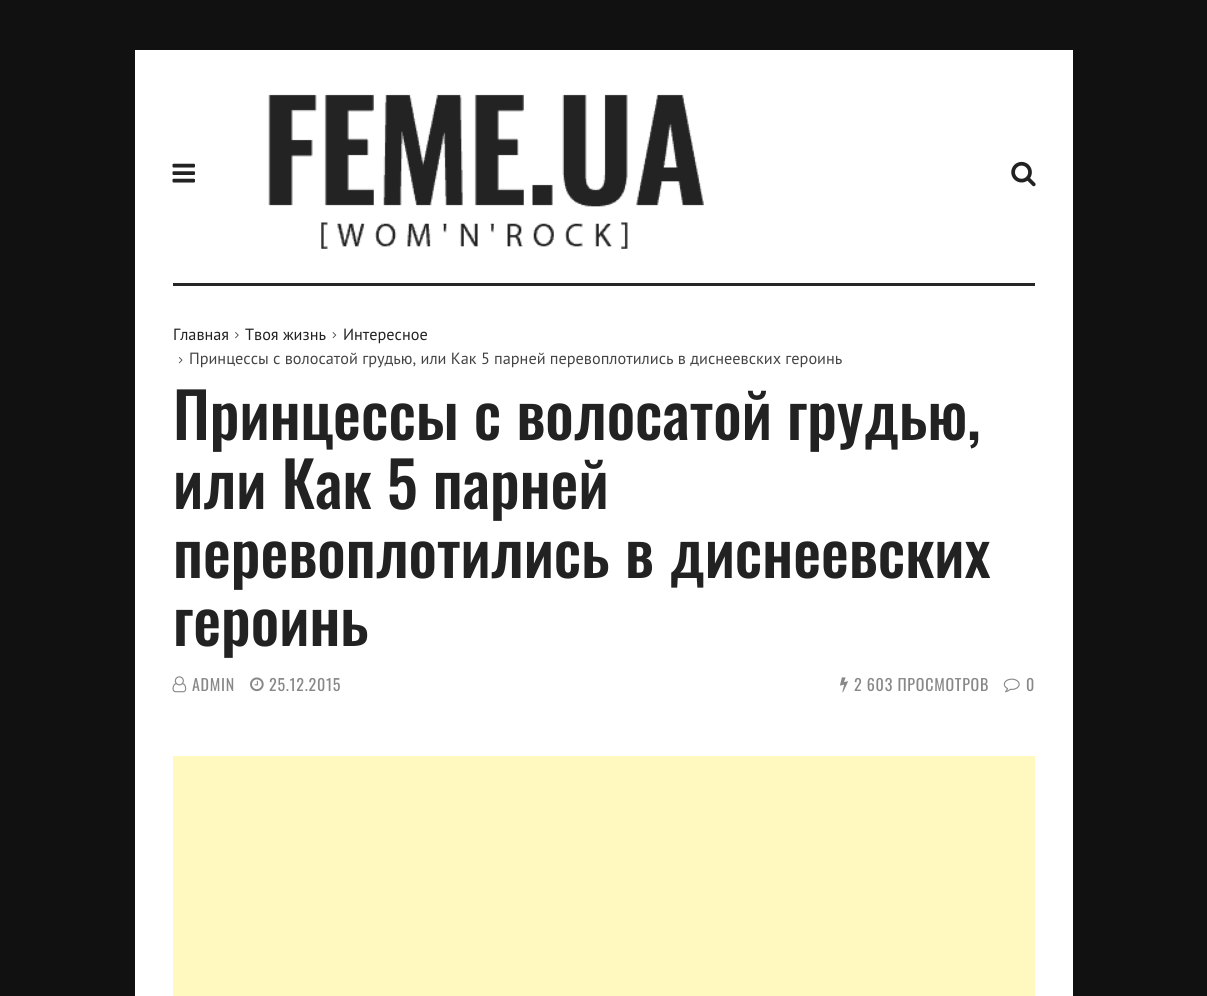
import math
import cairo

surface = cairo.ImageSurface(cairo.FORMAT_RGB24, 1207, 996)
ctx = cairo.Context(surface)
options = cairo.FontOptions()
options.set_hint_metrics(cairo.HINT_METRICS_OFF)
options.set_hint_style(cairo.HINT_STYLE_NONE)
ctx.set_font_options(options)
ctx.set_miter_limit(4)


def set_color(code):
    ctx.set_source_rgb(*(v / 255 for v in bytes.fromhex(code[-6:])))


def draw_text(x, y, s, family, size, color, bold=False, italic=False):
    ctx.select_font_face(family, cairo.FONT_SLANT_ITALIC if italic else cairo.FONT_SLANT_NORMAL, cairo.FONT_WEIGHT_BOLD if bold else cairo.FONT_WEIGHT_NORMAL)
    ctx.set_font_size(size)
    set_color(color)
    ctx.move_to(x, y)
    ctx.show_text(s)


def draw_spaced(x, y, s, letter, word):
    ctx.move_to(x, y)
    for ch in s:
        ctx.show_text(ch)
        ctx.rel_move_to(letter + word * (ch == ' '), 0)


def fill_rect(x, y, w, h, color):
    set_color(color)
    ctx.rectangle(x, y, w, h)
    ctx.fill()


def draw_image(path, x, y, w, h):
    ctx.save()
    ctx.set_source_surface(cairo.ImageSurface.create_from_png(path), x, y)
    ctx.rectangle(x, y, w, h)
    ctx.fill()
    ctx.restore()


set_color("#111111")
ctx.paint()
fill_rect(135, 50, 938, 946, "#ffffff")
draw_image("assets/img1.png", 172, 163, 23, 20)
draw_image("assets/img2.png", 268, 94, 436, 155)
draw_image("assets/img3.png", 1011, 161, 25, 26)
fill_rect(173, 283, 862, 3, "#262626")
draw_text(173, 340, "Главная", "PT Sans", 16.25, "#222222")
draw_image("assets/img4.png", 235, 332, 4, 7)
draw_text(245, 340, "Твоя жизнь", "PT Sans", 16.25, "#222222")
draw_image("assets/img5.png", 332, 332, 5, 7)
draw_text(343, 340, "Интересное", "PT Sans", 16.25, "#222222")
draw_image("assets/img6.png", 178, 357, 5, 7)
draw_text(189, 364, "Принцессы с волосатой грудью, или Как 5 парней перевоплотились в диснеевских героинь", "PT Sans", 16.25, "#444444")
draw_text(173, 440, "Принцессы с волосатой грудью,", "Oswald Medium", 62.5, "#222222")
draw_text(173, 509, "или Как 5 парней", "Oswald Medium", 62.5, "#222222")
draw_text(173, 578, "перевоплотились в диснеевских", "Oswald Medium", 62.5, "#222222")
draw_text(173, 646, "героинь", "Oswald Medium", 62.5, "#222222")
draw_image("assets/img7.png", 172, 676, 15, 17)
ctx.select_font_face("Oswald")
ctx.set_font_size(16)
set_color("#888888")
draw_spaced(192, 691, "ADMIN", 0.75, 0)
draw_image("assets/img8.png", 250, 677, 14, 15)
draw_spaced(269, 691, "25.12.2015", 0.75, 0)
draw_image("assets/img9.png", 840, 677, 8, 16)
draw_spaced(854, 691, "2 603 ПРОСМОТРОВ", 0.75, 0)
draw_image("assets/img10.png", 1003, 678, 17, 15)
draw_spaced(1026, 691, "0", 0.75, 0)
fill_rect(173, 756, 862, 240, "#fff9c0")
surface.write_to_png("output.png")
